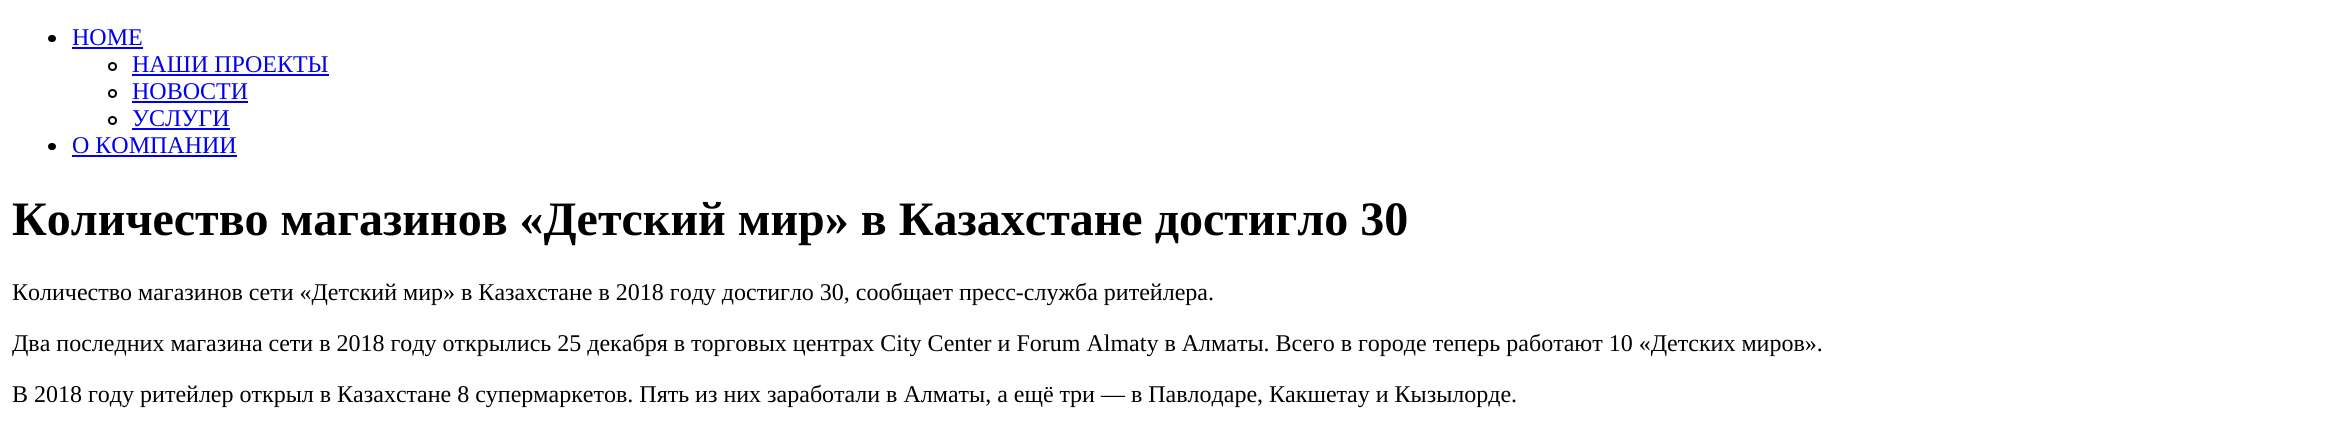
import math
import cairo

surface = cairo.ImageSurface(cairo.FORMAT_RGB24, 2345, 431)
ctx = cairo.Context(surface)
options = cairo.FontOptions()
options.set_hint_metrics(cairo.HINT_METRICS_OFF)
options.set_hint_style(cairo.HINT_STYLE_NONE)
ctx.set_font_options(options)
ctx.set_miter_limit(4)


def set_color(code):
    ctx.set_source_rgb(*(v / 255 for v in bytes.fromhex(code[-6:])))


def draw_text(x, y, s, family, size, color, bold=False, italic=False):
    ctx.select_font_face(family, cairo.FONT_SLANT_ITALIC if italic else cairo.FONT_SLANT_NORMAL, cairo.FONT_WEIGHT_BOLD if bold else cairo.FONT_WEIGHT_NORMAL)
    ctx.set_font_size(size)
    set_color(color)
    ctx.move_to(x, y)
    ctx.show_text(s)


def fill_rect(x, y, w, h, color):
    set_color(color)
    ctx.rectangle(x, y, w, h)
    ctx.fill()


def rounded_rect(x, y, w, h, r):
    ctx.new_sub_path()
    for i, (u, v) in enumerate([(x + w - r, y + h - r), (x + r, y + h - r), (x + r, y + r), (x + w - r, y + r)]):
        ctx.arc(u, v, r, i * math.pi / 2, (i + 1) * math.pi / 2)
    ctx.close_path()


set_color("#ffffff")
ctx.paint()
set_color("#000000")
rounded_rect(48, 35, 8, 7, 3.5)
ctx.fill()
draw_text(72, 45, "HOME", "Liberation Serif", 24, "#0000ee")
fill_rect(72, 47, 71, 2, "#0000ee")
ctx.new_path()
ctx.arc(112.5, 66.5, 3.5, 0, 2 * math.pi)
set_color("#000000")
ctx.stroke()
draw_text(132, 72, "НАШИ ПРОЕКТЫ", "Liberation Serif", 24, "#0000ee")
fill_rect(132, 74, 197, 2, "#0000ee")
ctx.new_path()
ctx.arc(112.5, 93.5, 3.5, 0, 2 * math.pi)
set_color("#000000")
ctx.stroke()
draw_text(132, 99, "НОВОСТИ", "Liberation Serif", 24, "#0000ee")
fill_rect(132, 101, 116, 2, "#0000ee")
ctx.new_path()
ctx.arc(112.5, 120.5, 3.5, 0, 2 * math.pi)
set_color("#000000")
ctx.stroke()
draw_text(132, 126, "УСЛУГИ", "Liberation Serif", 24, "#0000ee")
fill_rect(132, 128, 98, 2, "#0000ee")
set_color("#000000")
rounded_rect(48, 143, 8, 7, 3.5)
ctx.fill()
draw_text(72, 153, "О КОМПАНИИ", "Liberation Serif", 24, "#0000ee")
fill_rect(72, 155, 165, 2, "#0000ee")
draw_text(12, 235, "Количество магазинов «Детский мир» в Казахстане достигло 30", "Liberation Serif", 48, "#000000", bold=True)
draw_text(12, 300, "Количество магазинов сети «Детский мир» в Казахстане в 2018 году достигло 30, сообщает пресс-служба ритейлера.", "Liberation Serif", 24, "#000000")
draw_text(12, 351, "Два последних магазина сети в 2018 году открылись 25 декабря в торговых центрах City Center и Forum Almaty в Алматы. Всего в городе теперь работают 10 «Детских миров».", "Liberation Serif", 24, "#000000")
draw_text(12, 402, "В 2018 году ритейлер открыл в Казахстане 8 супермаркетов. Пять из них заработали в Алматы, а ещё три — в Павлодаре, Какшетау и Кызылорде.", "Liberation Serif", 24, "#000000")
surface.write_to_png("output.png")
